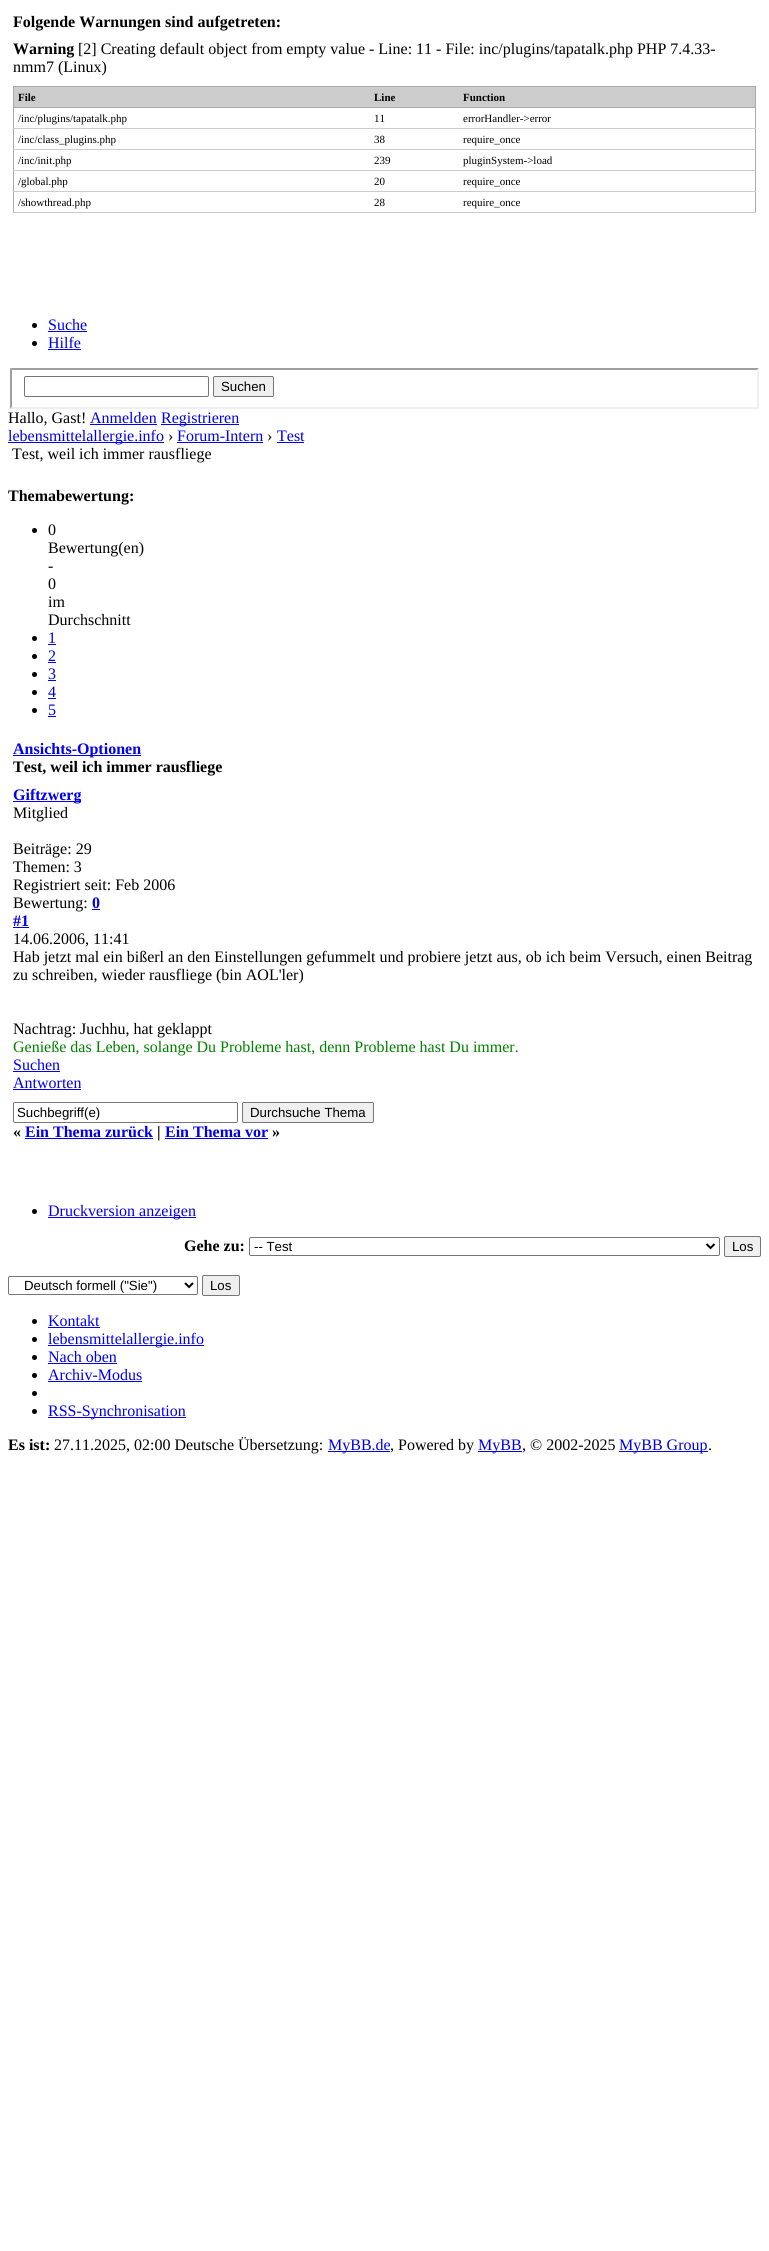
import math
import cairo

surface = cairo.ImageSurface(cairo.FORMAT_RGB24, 769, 2251)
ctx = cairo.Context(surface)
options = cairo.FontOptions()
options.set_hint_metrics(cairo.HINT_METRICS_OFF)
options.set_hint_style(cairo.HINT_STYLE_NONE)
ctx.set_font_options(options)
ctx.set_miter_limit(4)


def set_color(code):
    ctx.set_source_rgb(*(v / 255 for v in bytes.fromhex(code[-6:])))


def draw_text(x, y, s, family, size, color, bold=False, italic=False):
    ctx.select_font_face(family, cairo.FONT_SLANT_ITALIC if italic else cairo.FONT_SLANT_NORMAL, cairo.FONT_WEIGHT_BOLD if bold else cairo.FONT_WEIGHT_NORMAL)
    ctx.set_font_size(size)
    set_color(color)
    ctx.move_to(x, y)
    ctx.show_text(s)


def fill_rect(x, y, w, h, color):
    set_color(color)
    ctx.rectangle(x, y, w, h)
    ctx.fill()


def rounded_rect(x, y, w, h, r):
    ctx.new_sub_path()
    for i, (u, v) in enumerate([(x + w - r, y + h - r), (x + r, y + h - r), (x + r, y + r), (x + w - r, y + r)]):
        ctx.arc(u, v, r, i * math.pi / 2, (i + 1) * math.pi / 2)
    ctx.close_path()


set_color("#ffffff")
ctx.paint()
draw_text(13, 27, "Folgende Warnungen sind aufgetreten:", "Liberation Serif", 16, "#000000", bold=True)
draw_text(13, 54, "Warning", "Liberation Serif", 16, "#000000", bold=True)
draw_text(78, 54, "[2] Creating default object from empty value - Line: 11 - File: inc/plugins/tapatalk.php PHP 7.4.33-", "Liberation Serif", 16, "#000000")
draw_text(13, 72, "nmm7 (Linux)", "Liberation Serif", 16, "#000000")
fill_rect(13, 86, 743, 1, "#aaaaaa")
fill_rect(755, 86, 1, 127, "#aaaaaa")
fill_rect(13, 86, 1, 127, "#aaaaaa")
fill_rect(14, 87, 741, 20, "#cccccc")
draw_text(18, 101, "File", "Liberation Serif", 11, "#000000", bold=True)
draw_text(374, 101, "Line", "Liberation Serif", 11, "#000000", bold=True)
fill_rect(13, 107, 743, 1, "#aaaaaa")
draw_text(463, 101, "Function", "Liberation Serif", 11, "#000000", bold=True)
draw_text(18, 122, "/inc/plugins/tapatalk.php", "Liberation Serif", 11, "#000000")
draw_text(374, 122, "11", "Liberation Serif", 11, "#000000")
fill_rect(13, 128, 743, 1, "#cccccc")
draw_text(463, 122, "errorHandler->error", "Liberation Serif", 11, "#000000")
draw_text(18, 143, "/inc/class_plugins.php", "Liberation Serif", 11, "#000000")
draw_text(374, 143, "38", "Liberation Serif", 11, "#000000")
fill_rect(13, 149, 743, 1, "#cccccc")
draw_text(463, 143, "require_once", "Liberation Serif", 11, "#000000")
draw_text(18, 164, "/inc/init.php", "Liberation Serif", 11, "#000000")
draw_text(374, 164, "239", "Liberation Serif", 11, "#000000")
fill_rect(13, 170, 743, 1, "#cccccc")
draw_text(463, 164, "pluginSystem->load", "Liberation Serif", 11, "#000000")
draw_text(18, 185, "/global.php", "Liberation Serif", 11, "#000000")
draw_text(374, 185, "20", "Liberation Serif", 11, "#000000")
fill_rect(13, 191, 743, 1, "#cccccc")
draw_text(463, 185, "require_once", "Liberation Serif", 11, "#000000")
draw_text(18, 206, "/showthread.php", "Liberation Serif", 11, "#000000")
draw_text(374, 206, "28", "Liberation Serif", 11, "#000000")
fill_rect(13, 212, 743, 1, "#cccccc")
draw_text(463, 206, "require_once", "Liberation Serif", 11, "#000000")
ctx.new_path()
ctx.arc(34.5, 325.5, 2.5, 0, 2 * math.pi)
ctx.fill()
draw_text(48, 330, "Suche", "Liberation Serif", 16, "#0000ee")
fill_rect(48, 331, 39, 1, "#0000ee")
set_color("#000000")
ctx.new_path()
ctx.arc(34.5, 343.5, 2.5, 0, 2 * math.pi)
ctx.fill()
draw_text(48, 348, "Hilfe", "Liberation Serif", 16, "#0000ee")
fill_rect(48, 349, 33, 1, "#0000ee")
set_color("#9f9f9f")
ctx.new_path()
ctx.move_to(10, 368)
ctx.line_to(759, 368)
ctx.line_to(757, 370)
ctx.line_to(12, 370)
ctx.close_path()
ctx.fill()
set_color("#efefef")
ctx.new_path()
ctx.move_to(759, 368)
ctx.line_to(759, 409)
ctx.line_to(757, 407)
ctx.line_to(757, 370)
ctx.close_path()
ctx.fill()
ctx.new_path()
ctx.move_to(759, 409)
ctx.line_to(10, 409)
ctx.line_to(12, 407)
ctx.line_to(757, 407)
ctx.close_path()
ctx.fill()
set_color("#9f9f9f")
ctx.new_path()
ctx.move_to(10, 409)
ctx.line_to(10, 368)
ctx.line_to(12, 370)
ctx.line_to(12, 407)
ctx.close_path()
ctx.fill()
rounded_rect(24.5, 376.5, 184, 20, 1.5)
set_color("#767676")
ctx.set_line_width(1)
ctx.stroke()
set_color("#efefef")
rounded_rect(213.5, 376.5, 60, 20, 1.5)
ctx.fill_preserve()
set_color("#767676")
ctx.stroke()
draw_text(221, 391, "Suchen", "Liberation Sans", 13.25, "#000000")
draw_text(8, 423, "Hallo, Gast!", "Liberation Serif", 16, "#000000")
draw_text(90, 423, "Anmelden", "Liberation Serif", 16, "#0000ee")
fill_rect(90, 424, 67, 1, "#0000ee")
fill_rect(161, 424, 78, 1, "#0000ee")
draw_text(161, 423, "Registrieren", "Liberation Serif", 16, "#0000ee")
fill_rect(8, 442, 156, 1, "#0000ee")
draw_text(8, 441, "lebensmittelallergie.info", "Liberation Serif", 16, "#0000ee")
draw_text(168, 441, "›", "Liberation Serif", 16, "#000000")
draw_text(177, 441, "Forum-Intern", "Liberation Serif", 16, "#0000ee")
fill_rect(177, 442, 86, 1, "#0000ee")
draw_text(267, 441, "›", "Liberation Serif", 16, "#000000")
draw_text(277, 441, "Test", "Liberation Serif", 16, "#0000ee")
fill_rect(277, 442, 27, 1, "#0000ee")
draw_text(12, 459, "Test, weil ich immer rausfliege", "Liberation Serif", 16, "#000000")
draw_text(8, 501, "Themabewertung:", "Liberation Serif", 16, "#000000", bold=True)
ctx.new_path()
ctx.arc(34.5, 530.5, 2.5, 0, 2 * math.pi)
ctx.fill()
draw_text(48, 535, "0", "Liberation Serif", 16, "#000000")
draw_text(48, 553, "Bewertung(en)", "Liberation Serif", 16, "#000000")
draw_text(48, 571, "-", "Liberation Serif", 16, "#000000")
draw_text(48, 589, "0", "Liberation Serif", 16, "#000000")
draw_text(48, 607, "im", "Liberation Serif", 16, "#000000")
draw_text(48, 625, "Durchschnitt", "Liberation Serif", 16, "#000000")
ctx.new_path()
ctx.arc(34.5, 638.5, 2.5, 0, 2 * math.pi)
ctx.fill()
draw_text(48, 643, "1", "Liberation Serif", 16, "#0000ee")
fill_rect(48, 644, 8, 1, "#0000ee")
set_color("#000000")
ctx.new_path()
ctx.arc(34.5, 656.5, 2.5, 0, 2 * math.pi)
ctx.fill()
draw_text(48, 661, "2", "Liberation Serif", 16, "#0000ee")
fill_rect(48, 662, 8, 1, "#0000ee")
set_color("#000000")
ctx.new_path()
ctx.arc(34.5, 674.5, 2.5, 0, 2 * math.pi)
ctx.fill()
draw_text(48, 679, "3", "Liberation Serif", 16, "#0000ee")
fill_rect(48, 680, 8, 1, "#0000ee")
set_color("#000000")
ctx.new_path()
ctx.arc(34.5, 692.5, 2.5, 0, 2 * math.pi)
ctx.fill()
draw_text(48, 697, "4", "Liberation Serif", 16, "#0000ee")
fill_rect(48, 698, 8, 1, "#0000ee")
set_color("#000000")
ctx.new_path()
ctx.arc(34.5, 710.5, 2.5, 0, 2 * math.pi)
ctx.fill()
draw_text(48, 715, "5", "Liberation Serif", 16, "#0000ee")
fill_rect(48, 716, 8, 1, "#0000ee")
fill_rect(13, 755, 128, 1, "#0000ee")
draw_text(13, 754, "Ansichts-Optionen", "Liberation Serif", 16, "#0000ee", bold=True)
draw_text(13, 772, "Test, weil ich immer rausfliege", "Liberation Serif", 16, "#000000", bold=True)
fill_rect(13, 801, 68, 1, "#0000ee")
draw_text(13, 800, "Giftzwerg", "Liberation Serif", 16, "#0000ee", bold=True)
draw_text(13, 818, "Mitglied", "Liberation Serif", 16, "#000000")
draw_text(13, 854, "Beiträge: 29", "Liberation Serif", 16, "#000000")
draw_text(13, 872, "Themen: 3", "Liberation Serif", 16, "#000000")
draw_text(13, 890, "Registriert seit: Feb 2006", "Liberation Serif", 16, "#000000")
draw_text(13, 908, "Bewertung:", "Liberation Serif", 16, "#000000")
draw_text(92, 908, "0", "Liberation Serif", 16, "#0000ee", bold=True)
fill_rect(92, 909, 8, 1, "#0000ee")
draw_text(13, 926, "#1", "Liberation Serif", 16, "#0000ee", bold=True)
fill_rect(13, 927, 16, 1, "#0000ee")
draw_text(13, 944, "14.06.2006, 11:41", "Liberation Serif", 16, "#000000")
draw_text(13, 962, "Hab jetzt mal ein bißerl an den Einstellungen gefummelt und probiere jetzt aus, ob ich beim Versuch, einen Beitrag", "Liberation Serif", 16, "#000000")
draw_text(13, 980, "zu schreiben, wieder rausfliege (bin AOL'ler)", "Liberation Serif", 16, "#000000")
draw_text(13, 1034, "Nachtrag: Juchhu, hat geklappt", "Liberation Serif", 16, "#000000")
draw_text(13, 1052, "Genieße das Leben, solange Du Probleme hast, denn Probleme hast Du immer.", "Liberation Serif", 16, "#008000")
draw_text(13, 1070, "Suchen", "Liberation Serif", 16, "#0000ee")
fill_rect(13, 1071, 47, 1, "#0000ee")
draw_text(13, 1088, "Antworten", "Liberation Serif", 16, "#0000ee")
fill_rect(13, 1089, 68, 1, "#0000ee")
rounded_rect(13.5, 1102.5, 224, 20, 1.5)
set_color("#767676")
ctx.stroke()
draw_text(17, 1117, "Suchbegriff(e)", "Liberation Sans", 13.25, "#000000")
set_color("#efefef")
rounded_rect(242.5, 1102.5, 131, 20, 1.5)
ctx.fill_preserve()
set_color("#767676")
ctx.stroke()
draw_text(250, 1117, "Durchsuche Thema", "Liberation Sans", 13.25, "#000000")
draw_text(13, 1137, "«", "Liberation Serif", 16, "#000000", bold=True)
fill_rect(25, 1138, 128, 1, "#0000ee")
draw_text(25, 1137, "Ein Thema zurück", "Liberation Serif", 16, "#0000ee", bold=True)
draw_text(157, 1137, "|", "Liberation Serif", 16, "#000000", bold=True)
draw_text(165, 1137, "Ein Thema vor", "Liberation Serif", 16, "#0000ee", bold=True)
fill_rect(165, 1138, 103, 1, "#0000ee")
draw_text(272, 1137, "»", "Liberation Serif", 16, "#000000", bold=True)
ctx.new_path()
ctx.arc(34.5, 1211.5, 2.5, 0, 2 * math.pi)
ctx.fill()
fill_rect(48, 1217, 148, 1, "#0000ee")
draw_text(48, 1216, "Druckversion anzeigen", "Liberation Serif", 16, "#0000ee")
draw_text(184, 1251, "Gehe zu:", "Liberation Serif", 16, "#000000", bold=True)
rounded_rect(249.5, 1237.5, 470, 18, 1.5)
set_color("#767676")
ctx.stroke()
ctx.new_path()
ctx.move_to(706.5, 1244)
ctx.line_to(710.5, 1248)
ctx.line_to(714.5, 1244)
set_color("#000000")
ctx.set_line_width(2)
ctx.stroke()
draw_text(254, 1251, "-- Test", "Liberation Sans", 13.25, "#000000")
set_color("#efefef")
rounded_rect(724.5, 1236.5, 36, 20, 1.5)
ctx.fill_preserve()
set_color("#767676")
ctx.set_line_width(1)
ctx.stroke()
draw_text(732, 1251, "Los", "Liberation Sans", 13.25, "#000000")
rounded_rect(8.5, 1276.5, 189, 18, 1.5)
set_color("#767676")
ctx.stroke()
ctx.new_path()
ctx.move_to(185, 1283)
ctx.line_to(189, 1287)
ctx.line_to(193, 1283)
set_color("#000000")
ctx.set_line_width(2)
ctx.stroke()
draw_text(24, 1290, "Deutsch formell (\"Sie\")", "Liberation Sans", 13.25, "#000000")
set_color("#efefef")
rounded_rect(202.5, 1275.5, 37, 20, 1.5)
ctx.fill_preserve()
set_color("#767676")
ctx.set_line_width(1)
ctx.stroke()
draw_text(210, 1290, "Los", "Liberation Sans", 13.25, "#000000")
ctx.new_path()
ctx.arc(34.5, 1321.5, 2.5, 0, 2 * math.pi)
ctx.fill()
draw_text(48, 1326, "Kontakt", "Liberation Serif", 16, "#0000ee")
fill_rect(48, 1327, 52, 1, "#0000ee")
set_color("#000000")
ctx.new_path()
ctx.arc(34.5, 1339.5, 2.5, 0, 2 * math.pi)
ctx.fill()
fill_rect(48, 1345, 156, 1, "#0000ee")
draw_text(48, 1344, "lebensmittelallergie.info", "Liberation Serif", 16, "#0000ee")
set_color("#000000")
ctx.new_path()
ctx.arc(34.5, 1357.5, 2.5, 0, 2 * math.pi)
ctx.fill()
draw_text(48, 1362, "Nach oben", "Liberation Serif", 16, "#0000ee")
fill_rect(48, 1363, 69, 1, "#0000ee")
set_color("#000000")
ctx.new_path()
ctx.arc(34.5, 1375.5, 2.5, 0, 2 * math.pi)
ctx.fill()
draw_text(48, 1380, "Archiv-Modus", "Liberation Serif", 16, "#0000ee")
fill_rect(48, 1381, 94, 1, "#0000ee")
set_color("#000000")
ctx.new_path()
ctx.arc(34.5, 1393.5, 2.5, 0, 2 * math.pi)
ctx.fill()
ctx.arc(34.5, 1411.5, 2.5, 0, 2 * math.pi)
ctx.fill()
fill_rect(48, 1417, 138, 1, "#0000ee")
draw_text(48, 1416, "RSS-Synchronisation", "Liberation Serif", 16, "#0000ee")
draw_text(8, 1450, "Es ist:", "Liberation Serif", 16, "#000000", bold=True)
draw_text(54, 1450, "27.11.2025, 02:00 Deutsche Übersetzung:", "Liberation Serif", 16, "#000000")
fill_rect(328, 1451, 62, 1, "#0000ee")
draw_text(328, 1450, "MyBB.de", "Liberation Serif", 16, "#0000ee")
draw_text(390, 1450, ", Powered by", "Liberation Serif", 16, "#000000")
fill_rect(478, 1451, 44, 1, "#0000ee")
draw_text(478, 1450, "MyBB", "Liberation Serif", 16, "#0000ee")
draw_text(522, 1450, ", © 2002-2025", "Liberation Serif", 16, "#000000")
fill_rect(619, 1451, 89, 1, "#0000ee")
draw_text(619, 1450, "MyBB Group", "Liberation Serif", 16, "#0000ee")
draw_text(708, 1450, ".", "Liberation Serif", 16, "#000000")
surface.write_to_png("output.png")
